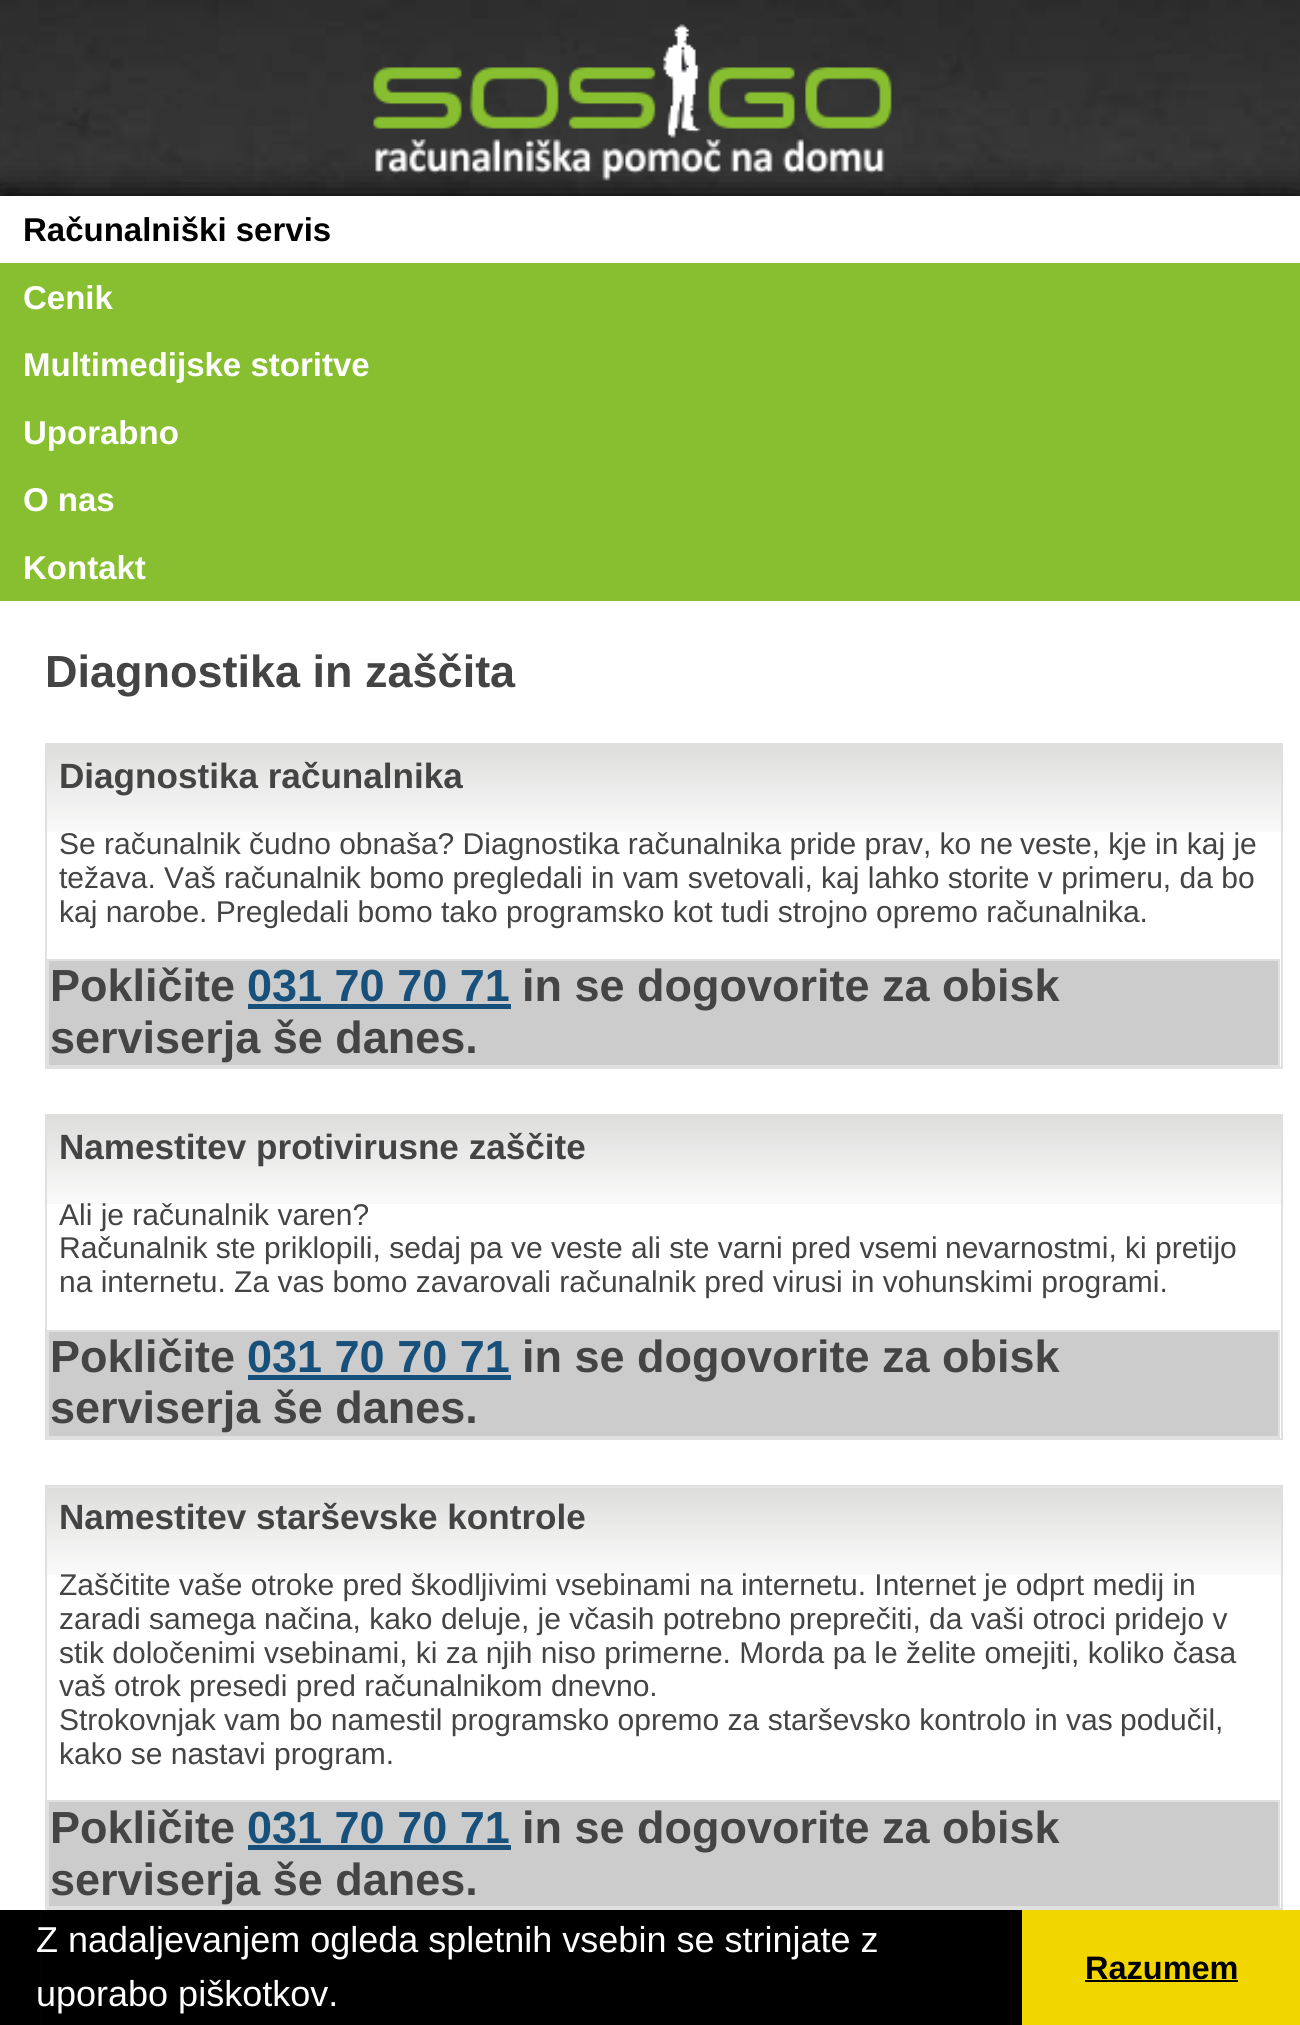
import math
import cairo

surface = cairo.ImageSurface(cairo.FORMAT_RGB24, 1300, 2025)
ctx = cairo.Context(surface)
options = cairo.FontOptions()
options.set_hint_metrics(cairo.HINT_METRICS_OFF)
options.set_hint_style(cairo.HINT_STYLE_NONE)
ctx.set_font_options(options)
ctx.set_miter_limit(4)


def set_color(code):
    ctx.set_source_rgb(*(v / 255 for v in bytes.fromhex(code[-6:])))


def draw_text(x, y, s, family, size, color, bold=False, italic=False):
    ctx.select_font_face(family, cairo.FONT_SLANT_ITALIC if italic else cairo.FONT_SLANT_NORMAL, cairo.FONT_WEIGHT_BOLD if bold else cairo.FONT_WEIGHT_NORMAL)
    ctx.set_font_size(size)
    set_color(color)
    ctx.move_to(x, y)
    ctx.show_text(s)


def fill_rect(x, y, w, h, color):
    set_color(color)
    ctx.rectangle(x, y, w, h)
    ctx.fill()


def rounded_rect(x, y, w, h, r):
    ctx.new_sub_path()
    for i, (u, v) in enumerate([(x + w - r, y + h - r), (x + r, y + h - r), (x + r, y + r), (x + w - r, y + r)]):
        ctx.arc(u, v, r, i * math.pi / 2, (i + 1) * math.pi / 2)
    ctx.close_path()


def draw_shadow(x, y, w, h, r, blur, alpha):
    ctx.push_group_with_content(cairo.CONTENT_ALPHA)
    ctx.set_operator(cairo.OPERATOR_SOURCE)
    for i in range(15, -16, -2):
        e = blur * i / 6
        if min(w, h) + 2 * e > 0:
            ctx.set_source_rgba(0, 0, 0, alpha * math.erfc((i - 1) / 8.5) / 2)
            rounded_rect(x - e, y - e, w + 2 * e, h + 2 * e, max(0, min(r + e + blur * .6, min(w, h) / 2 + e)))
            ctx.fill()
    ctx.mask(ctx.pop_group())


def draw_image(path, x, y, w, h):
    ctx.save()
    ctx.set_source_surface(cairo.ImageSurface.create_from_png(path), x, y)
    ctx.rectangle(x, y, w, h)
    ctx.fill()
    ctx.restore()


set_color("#ffffff")
ctx.paint()
draw_image("assets/img1.png", 0, 0, 1300, 196)
set_color("#000000")
draw_shadow(0, 196, 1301, 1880, 0, 17, 1)
draw_image("assets/img2.png", 373, 24, 519, 157)
fill_rect(0, 601, 1300, 1309, "#ffffff")
fill_rect(0, 263, 1300, 338, "#88bf30")
fill_rect(0, 196, 1300, 67, "#ffffff")
draw_text(23, 241, "Računalniški servis", "Liberation Sans", 33, "#000000", bold=True)
draw_text(23, 309, "Cenik", "Liberation Sans", 33, "#ffffff", bold=True)
draw_text(23, 376, "Multimedijske storitve", "Liberation Sans", 33, "#ffffff", bold=True)
draw_text(23, 444, "Uporabno", "Liberation Sans", 33, "#ffffff", bold=True)
draw_text(23, 511, "O nas", "Liberation Sans", 33, "#ffffff", bold=True)
draw_text(23, 579, "Kontakt", "Liberation Sans", 33, "#ffffff", bold=True)
draw_text(45, 687, "Diagnostika in zaščita", "Liberation Sans", 45, "#444444", bold=True)
draw_image("assets/img3.png", 47, 745, 1234, 87)
ctx.rectangle(46, 744, 1236, 324)
set_color("#e0e0e0")
ctx.stroke()
draw_text(59, 788, "Diagnostika računalnika", "Liberation Sans", 35.1, "#444444", bold=True)
draw_text(59, 854, "Se računalnik čudno obnaša? Diagnostika računalnika pride prav, ko ne", "Liberation Sans", 30, "#444444")
draw_text(1020, 854, "veste, kje in kaj je", "Liberation Sans", 30, "#444444")
draw_text(59, 888, "težava. Vaš računalnik bomo pregledali in vam svetovali, kaj lahko storite v primeru, da bo", "Liberation Sans", 30, "#444444")
draw_text(59, 922, "kaj narobe. Pregledali bomo tako programsko kot tudi strojno opremo računalnika.", "Liberation Sans", 30, "#444444")
set_color("#cccccc")
ctx.rectangle(48, 960, 1231, 106)
ctx.fill_preserve()
set_color("#e0e0e0")
ctx.stroke()
draw_text(50, 1001, "Pokličite", "Liberation Sans", 45, "#444444", bold=True)
draw_text(247, 1001, "031 70 70 71", "Liberation Sans", 45, "#18507c", bold=True)
fill_rect(248, 1004, 263, 5, "#18507c")
draw_text(522, 1001, "in se dogovorite za obisk", "Liberation Sans", 45, "#444444", bold=True)
draw_text(50, 1053, "serviserja še danes.", "Liberation Sans", 45, "#444444", bold=True)
draw_image("assets/img4.png", 47, 1116, 1234, 88)
ctx.rectangle(46, 1115, 1236, 324)
set_color("#e0e0e0")
ctx.stroke()
draw_text(59, 1159, "Namestitev protivirusne zaščite", "Liberation Sans", 35.1, "#444444", bold=True)
draw_text(59, 1225, "Ali je računalnik varen?", "Liberation Sans", 30, "#444444")
draw_text(59, 1258, "Računalnik ste priklopili, sedaj pa ve veste ali ste varni pred vsemi", "Liberation Sans", 30, "#444444")
draw_text(945, 1258, "nevarnostmi, ki pretijo", "Liberation Sans", 30, "#444444")
draw_text(59, 1292, "na internetu. Za vas bomo zavarovali računalnik pred virusi in vohunskimi programi.", "Liberation Sans", 30, "#444444")
set_color("#cccccc")
ctx.rectangle(48, 1331, 1231, 106)
ctx.fill_preserve()
set_color("#e0e0e0")
ctx.stroke()
draw_text(50, 1372, "Pokličite", "Liberation Sans", 45, "#444444", bold=True)
draw_text(247, 1372, "031 70 70 71", "Liberation Sans", 45, "#18507c", bold=True)
fill_rect(248, 1375, 263, 5, "#18507c")
draw_text(522, 1372, "in se dogovorite za obisk", "Liberation Sans", 45, "#444444", bold=True)
draw_text(50, 1423, "serviserja še danes.", "Liberation Sans", 45, "#444444", bold=True)
draw_image("assets/img5.png", 47, 1487, 1234, 88)
ctx.rectangle(46, 1486, 1236, 423)
set_color("#e0e0e0")
ctx.stroke()
draw_text(59, 1529, "Namestitev starševske kontrole", "Liberation Sans", 35.1, "#444444", bold=True)
draw_text(59, 1595, "Zaščitite vaše otroke pred škodljivimi vsebinami na internetu. Internet", "Liberation Sans", 30, "#444444")
draw_text(984, 1595, "je odprt medij in", "Liberation Sans", 30, "#444444")
draw_text(59, 1629, "zaradi samega načina, kako deluje, je včasih potrebno", "Liberation Sans", 30, "#444444")
draw_text(789, 1629, "preprečiti, da vaši otroci pridejo v", "Liberation Sans", 30, "#444444")
draw_text(59, 1663, "stik določenimi vsebinami, ki za njih niso primerne. Morda pa le želite omejiti, koliko časa", "Liberation Sans", 30, "#444444")
draw_text(59, 1696, "vaš otrok presedi pred računalnikom dnevno.", "Liberation Sans", 30, "#444444")
draw_text(59, 1730, "Strokovnjak vam bo namestil programsko opremo za starševsko kontrolo in vas", "Liberation Sans", 30, "#444444")
draw_text(1120, 1730, "podučil,", "Liberation Sans", 30, "#444444")
draw_text(59, 1764, "kako se nastavi program.", "Liberation Sans", 30, "#444444")
set_color("#cccccc")
ctx.rectangle(48, 1801, 1231, 106)
ctx.fill_preserve()
set_color("#e0e0e0")
ctx.stroke()
draw_text(50, 1843, "Pokličite", "Liberation Sans", 45, "#444444", bold=True)
draw_text(247, 1843, "031 70 70 71", "Liberation Sans", 45, "#18507c", bold=True)
fill_rect(248, 1845, 263, 5, "#18507c")
draw_text(522, 1843, "in se dogovorite za obisk", "Liberation Sans", 45, "#444444", bold=True)
draw_text(50, 1895, "serviserja še danes.", "Liberation Sans", 45, "#444444", bold=True)
fill_rect(0, 1910, 40, 115, "#000000")
draw_text(36, 1952, "Z nadaljevanjem ogleda spletnih vsebin se strinjate z", "Liberation Sans", 36, "#ffffff")
draw_text(36, 2006, "uporabo piškotkov.", "Liberation Sans", 36, "#ffffff")
fill_rect(1022, 1910, 278, 115, "#f1d600")
draw_text(1085, 1979, "Razumem", "Liberation Sans", 32.5, "#000000", bold=True)
fill_rect(1085, 1980, 153, 2, "#000000")
surface.write_to_png("output.png")
